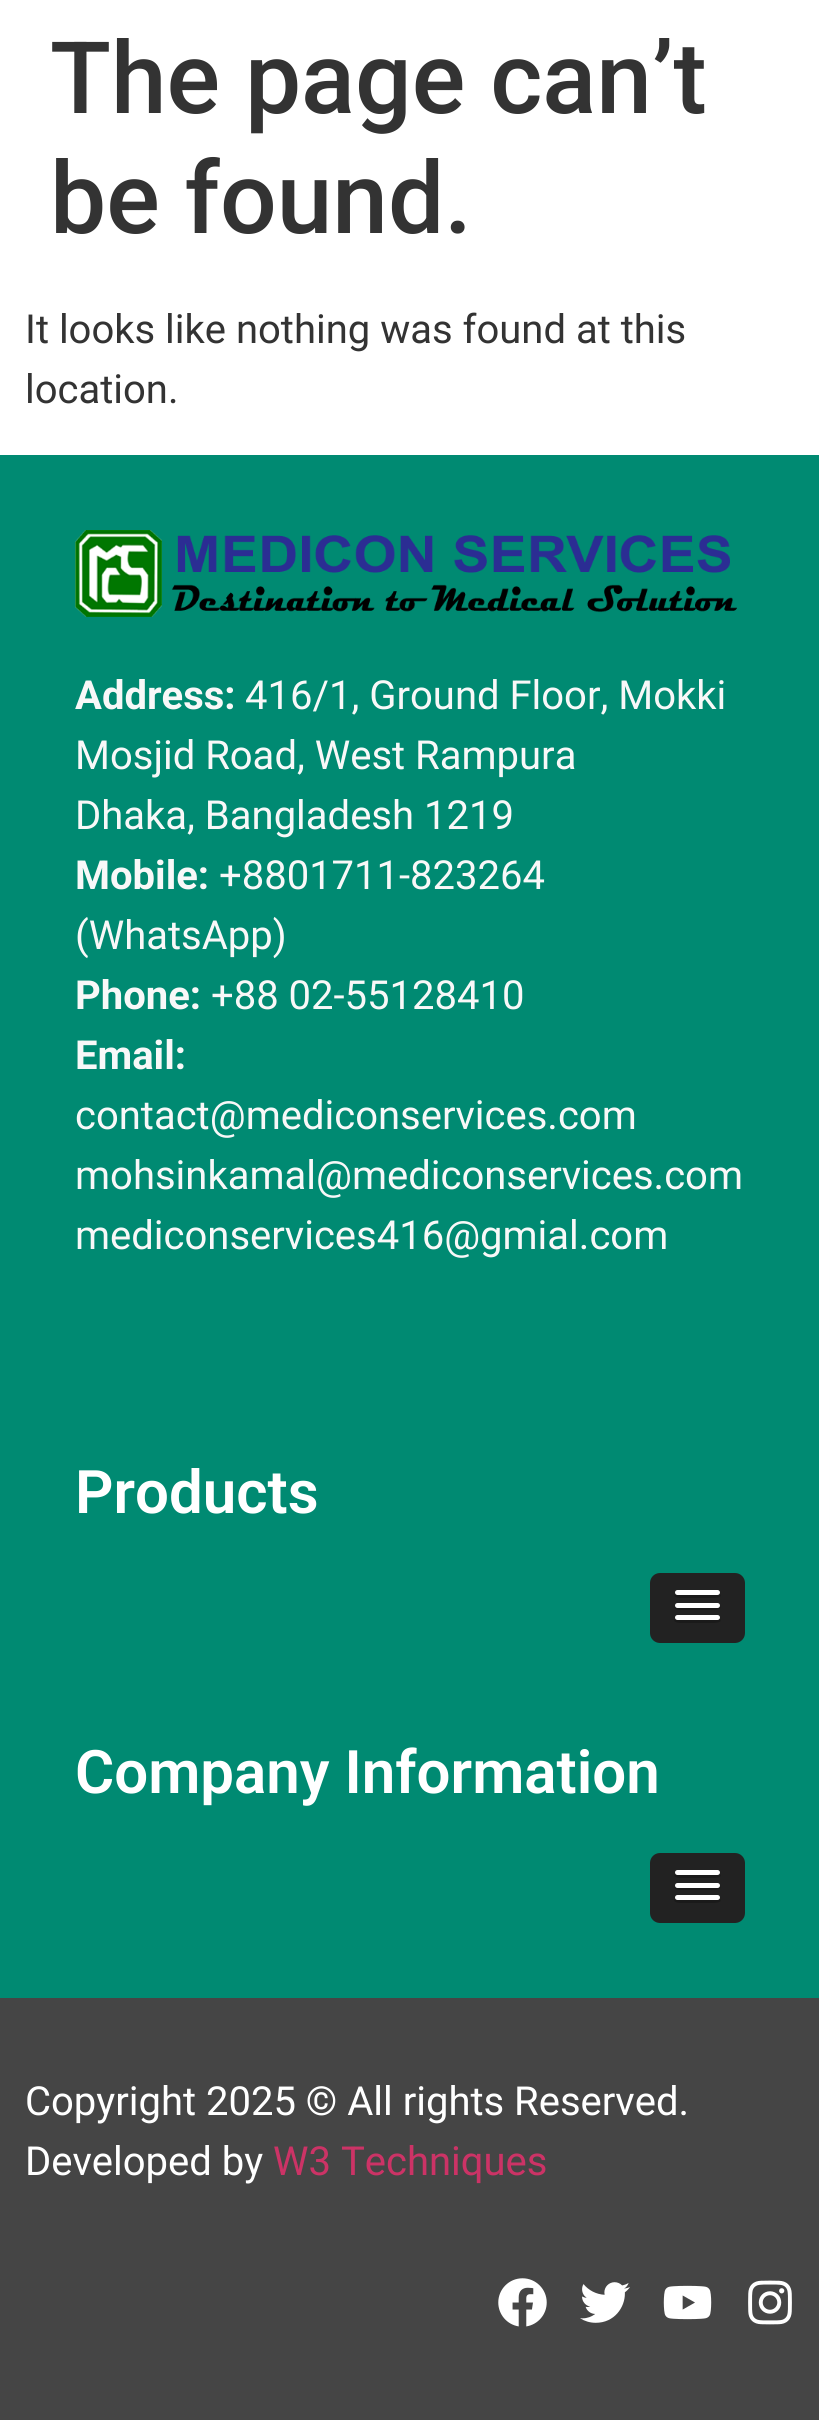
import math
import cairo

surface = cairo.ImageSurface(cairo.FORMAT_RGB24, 819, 2426)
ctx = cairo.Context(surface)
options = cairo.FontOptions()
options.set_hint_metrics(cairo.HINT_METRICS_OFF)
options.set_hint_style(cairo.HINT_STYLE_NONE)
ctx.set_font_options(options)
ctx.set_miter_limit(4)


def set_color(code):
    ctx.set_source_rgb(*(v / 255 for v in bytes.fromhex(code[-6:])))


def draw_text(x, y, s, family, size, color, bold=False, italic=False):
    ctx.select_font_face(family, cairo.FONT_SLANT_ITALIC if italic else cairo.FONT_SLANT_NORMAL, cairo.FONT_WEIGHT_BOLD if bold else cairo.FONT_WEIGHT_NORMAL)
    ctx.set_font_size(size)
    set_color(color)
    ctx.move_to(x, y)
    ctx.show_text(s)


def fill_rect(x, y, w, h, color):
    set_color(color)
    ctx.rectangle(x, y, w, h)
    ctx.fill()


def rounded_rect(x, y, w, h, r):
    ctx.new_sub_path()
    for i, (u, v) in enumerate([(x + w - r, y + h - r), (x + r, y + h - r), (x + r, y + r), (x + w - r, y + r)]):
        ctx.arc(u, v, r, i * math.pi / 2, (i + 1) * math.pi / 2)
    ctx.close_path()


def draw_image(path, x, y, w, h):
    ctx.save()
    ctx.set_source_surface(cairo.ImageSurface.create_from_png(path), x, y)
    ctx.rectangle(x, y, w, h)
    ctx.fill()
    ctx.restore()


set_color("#ffffff")
ctx.paint()
draw_text(50, 113, "The page can’t", "Roboto Medium", 100, "#333333")
draw_text(50, 233, "be found.", "Roboto Medium", 100, "#333333")
draw_text(25, 343, "It looks like nothing was found at this", "Roboto", 40, "#333333")
draw_text(25, 403, "location.", "Roboto", 40, "#333333")
fill_rect(0, 455, 819, 1543, "#008a72")
draw_image("assets/img1.png", 75, 530, 662, 87)
draw_text(75, 709, "Address:", "Roboto", 40, "#f8f8f8", bold=True)
draw_text(245, 709, "416/1, Ground Floor, Mokki", "Roboto", 40, "#f8f8f8")
draw_text(75, 769, "Mosjid Road, West Rampura", "Roboto", 40, "#f8f8f8")
draw_text(75, 829, "Dhaka, Bangladesh 1219", "Roboto", 40, "#f8f8f8")
draw_text(75, 889, "Mobile:", "Roboto", 40, "#f8f8f8", bold=True)
draw_text(219, 889, "+8801711-823264", "Roboto", 40, "#f8f8f8")
draw_text(75, 949, "(WhatsApp)", "Roboto", 40, "#f8f8f8")
draw_text(75, 1009, "Phone:", "Roboto", 40, "#f8f8f8", bold=True)
draw_text(211, 1009, "+88 02-55128410", "Roboto", 40, "#f8f8f8")
draw_text(75, 1069, "Email:", "Roboto", 40, "#f8f8f8", bold=True)
draw_text(75, 1129, "contact@mediconservices.com", "Roboto", 40, "#f8f8f8")
draw_text(75, 1189, "mohsinkamal@mediconservices.com", "Roboto", 40, "#f8f8f8")
draw_text(75, 1249, "mediconservices416@gmial.com", "Roboto", 40, "#f8f8f8")
draw_text(75, 1513, "Products", "Roboto SemiBold", 60, "#ffffff")
set_color("#222222")
rounded_rect(650, 1573, 95, 70, 10)
ctx.fill()
set_color("#1a1a1a")
ctx.new_path()
ctx.move_to(675, 1594)
ctx.curve_to(672, 1598, 680, 1598, 684, 1598)
ctx.line_to(711, 1598)
ctx.curve_to(715, 1598, 723, 1598, 720, 1594)
ctx.line_to(718, 1595)
ctx.line_to(677, 1595)
ctx.close_path()
ctx.fill()
set_color("#ffffff")
rounded_rect(675, 1590, 45, 5, 2.5)
ctx.fill()
set_color("#1a1a1a")
ctx.new_path()
ctx.move_to(675, 1606)
ctx.curve_to(672, 1611, 684, 1610, 684, 1610)
ctx.line_to(711, 1610)
ctx.curve_to(711, 1610, 723, 1611, 720, 1606)
ctx.curve_to(719, 1607, 718, 1608, 718, 1608)
ctx.line_to(678, 1608)
ctx.curve_to(677, 1608, 676, 1607, 675, 1606)
ctx.close_path()
ctx.fill()
set_color("#ffffff")
rounded_rect(675, 1603, 45, 5, 2.5)
ctx.fill()
set_color("#1a1a1a")
ctx.new_path()
ctx.move_to(675, 1619)
ctx.curve_to(672, 1623, 680, 1623, 684, 1623)
ctx.line_to(711, 1623)
ctx.curve_to(715, 1623, 723, 1623, 720, 1619)
ctx.line_to(718, 1620)
ctx.line_to(677, 1620)
ctx.close_path()
ctx.fill()
set_color("#ffffff")
rounded_rect(675, 1615, 45, 5, 2.5)
ctx.fill()
draw_text(75, 1793, "Company Information", "Roboto SemiBold", 60, "#ffffff")
set_color("#222222")
rounded_rect(650, 1853, 95, 70, 10)
ctx.fill()
set_color("#1a1a1a")
ctx.new_path()
ctx.move_to(675, 1874)
ctx.curve_to(672, 1878, 680, 1878, 684, 1878)
ctx.line_to(711, 1878)
ctx.curve_to(715, 1878, 723, 1878, 720, 1874)
ctx.line_to(718, 1875)
ctx.line_to(677, 1875)
ctx.close_path()
ctx.fill()
set_color("#ffffff")
rounded_rect(675, 1870, 45, 5, 2.5)
ctx.fill()
set_color("#1a1a1a")
ctx.new_path()
ctx.move_to(675, 1886)
ctx.curve_to(672, 1891, 684, 1890, 684, 1890)
ctx.line_to(711, 1890)
ctx.curve_to(711, 1890, 723, 1891, 720, 1886)
ctx.curve_to(719, 1887, 718, 1888, 718, 1888)
ctx.line_to(678, 1888)
ctx.curve_to(677, 1888, 676, 1887, 675, 1886)
ctx.close_path()
ctx.fill()
set_color("#ffffff")
rounded_rect(675, 1883, 45, 5, 2.5)
ctx.fill()
set_color("#1a1a1a")
ctx.new_path()
ctx.move_to(675, 1899)
ctx.curve_to(672, 1903, 680, 1903, 684, 1903)
ctx.line_to(711, 1903)
ctx.curve_to(715, 1903, 723, 1903, 720, 1899)
ctx.line_to(718, 1900)
ctx.line_to(677, 1900)
ctx.close_path()
ctx.fill()
set_color("#ffffff")
rounded_rect(675, 1895, 45, 5, 2.5)
ctx.fill()
fill_rect(0, 1998, 819, 422, "#454545")
draw_text(25, 2115, "Copyright 2025 © All rights Reserved.", "Roboto", 40, "#ffffff")
draw_text(25, 2175, "Developed by", "Roboto", 40, "#ffffff")
draw_text(273, 2175, "W3 Techniques", "Roboto", 40, "#cc3366")
draw_image("assets/img2.png", 498, 2278, 49, 49)
draw_image("assets/img3.png", 580, 2282, 50, 41)
draw_image("assets/img4.png", 663, 2285, 49, 35)
draw_image("assets/img5.png", 748, 2280, 44, 45)
surface.write_to_png("output.png")
